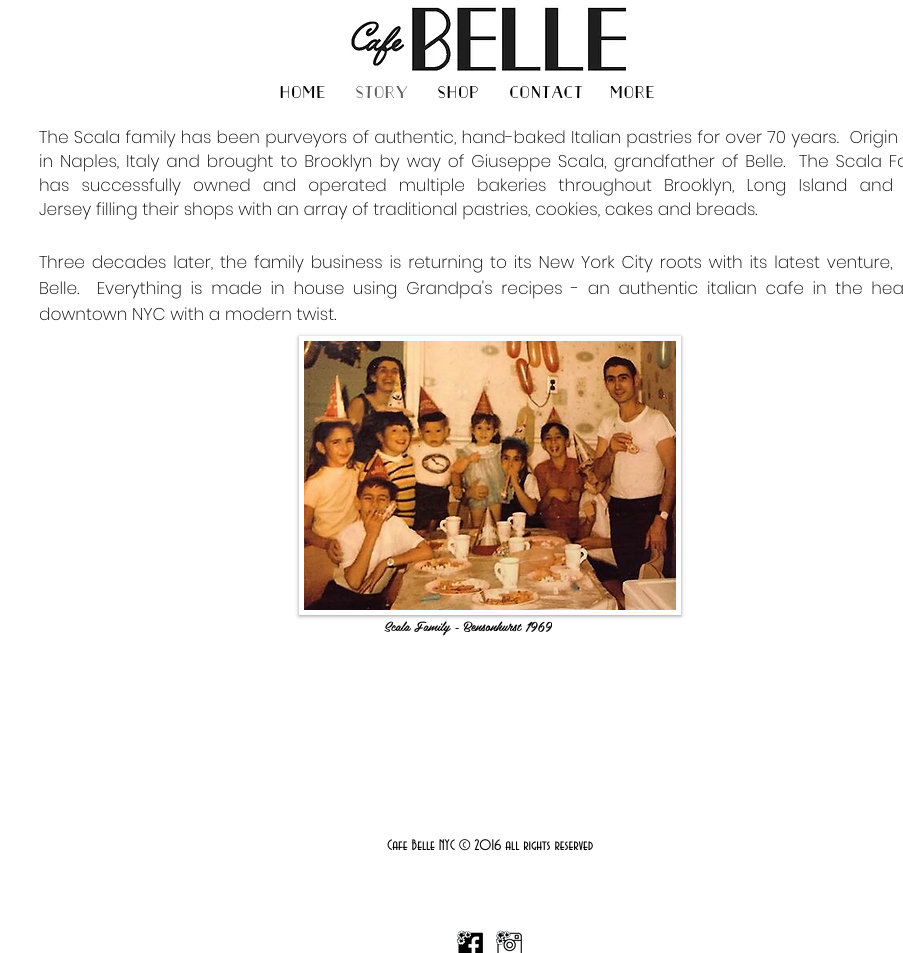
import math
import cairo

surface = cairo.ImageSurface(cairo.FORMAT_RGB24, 903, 953)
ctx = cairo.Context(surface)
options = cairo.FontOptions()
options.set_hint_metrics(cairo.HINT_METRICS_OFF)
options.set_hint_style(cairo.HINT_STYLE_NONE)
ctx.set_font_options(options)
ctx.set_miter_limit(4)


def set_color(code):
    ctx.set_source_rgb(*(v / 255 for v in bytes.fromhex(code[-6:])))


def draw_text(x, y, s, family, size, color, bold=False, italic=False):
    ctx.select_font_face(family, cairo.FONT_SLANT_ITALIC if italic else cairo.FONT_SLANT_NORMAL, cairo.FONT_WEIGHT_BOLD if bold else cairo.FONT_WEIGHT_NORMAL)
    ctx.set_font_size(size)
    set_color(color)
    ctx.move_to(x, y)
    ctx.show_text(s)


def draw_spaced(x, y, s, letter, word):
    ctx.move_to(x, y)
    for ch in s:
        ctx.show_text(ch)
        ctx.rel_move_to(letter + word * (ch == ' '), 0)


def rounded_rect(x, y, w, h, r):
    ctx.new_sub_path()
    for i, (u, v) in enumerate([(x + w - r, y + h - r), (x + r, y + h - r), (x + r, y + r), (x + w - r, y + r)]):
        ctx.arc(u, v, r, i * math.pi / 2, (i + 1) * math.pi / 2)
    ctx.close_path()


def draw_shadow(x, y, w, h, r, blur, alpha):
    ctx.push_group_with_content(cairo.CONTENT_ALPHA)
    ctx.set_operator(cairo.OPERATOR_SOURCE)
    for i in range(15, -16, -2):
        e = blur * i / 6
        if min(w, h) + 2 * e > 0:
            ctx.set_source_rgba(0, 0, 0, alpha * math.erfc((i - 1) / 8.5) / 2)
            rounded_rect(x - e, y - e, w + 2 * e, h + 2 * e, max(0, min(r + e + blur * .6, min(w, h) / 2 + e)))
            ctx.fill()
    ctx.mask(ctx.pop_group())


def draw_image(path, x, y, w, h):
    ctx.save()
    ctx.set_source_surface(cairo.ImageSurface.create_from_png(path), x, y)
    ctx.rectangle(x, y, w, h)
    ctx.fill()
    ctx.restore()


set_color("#ffffff")
ctx.paint()
draw_image("assets/img1.png", 350, 4, 277, 68)
draw_text(279, 98, "Home", "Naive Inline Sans", 16, "#000000", bold=True)
draw_text(355, 98, "Story", "Naive Inline Sans", 16, "#605e5e", bold=True)
draw_text(437, 98, "Shop", "Naive Inline Sans", 16, "#000000", bold=True)
draw_text(509, 98, "Contact", "Naive Inline Sans", 16, "#000000", bold=True)
draw_text(609, 98, "More", "Naive Inline Sans", 16, "#000000", bold=True)
ctx.select_font_face("Poppins ExtraLight")
ctx.set_font_size(17)
draw_spaced(39, 143, "The Scala family has been purveyors of authentic, hand-baked Italian pastries for over 70 years.  Origin", 0, 0.6)
draw_spaced(39, 167, "in Naples, Italy and brought to Brooklyn by way of Giuseppe Scala, grandfather of Belle.", 0, 2.25)
draw_spaced(799, 167, "The Scala Fa", 0, 2.25)
draw_spaced(39, 191, "has successfully owned and operated multiple bakeries throughout Brooklyn, Long Island and", 0, 7.4)
draw_text(39, 215, "Jersey filling their shops with an array of traditional pastries, cookies, cakes and breads.", "Poppins ExtraLight", 17, "#000000")
draw_text(39, 268, "T", "Poppins ExtraLight", 17, "#000000")
draw_spaced(47, 268, "hree decades later, the family business is returning to its New York City roots with its latest venture,", 0, 2.1)
draw_spaced(39, 294, "Belle.  Everything is made in house using Grandpa's recipes - an authentic italian cafe in the hea", 0, 4)
draw_text(39, 320, "downtown NYC with a modern twist.", "Poppins ExtraLight", 17, "#000000")
ctx.save()
ctx.set_fill_rule(cairo.FILL_RULE_EVEN_ODD)
ctx.new_path()
ctx.move_to(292, 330)
ctx.line_to(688, 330)
ctx.line_to(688, 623)
ctx.line_to(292, 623)
ctx.close_path()
ctx.move_to(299, 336)
ctx.line_to(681, 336)
ctx.line_to(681, 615)
ctx.line_to(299, 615)
ctx.close_path()
ctx.clip()
set_color("#000000")
draw_shadow(299, 337, 382, 279, 0, 2, 0.4)
ctx.restore()
draw_image("assets/img2.png", 304, 341, 372, 269)
draw_text(384, 631, "Scala Family - Bensonhurst 1969", "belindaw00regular", 13, "#000000")
draw_text(387, 850, "Cafe Belle NYC © 2016 all rights reserved", "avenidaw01", 16, "#000000")
draw_image("assets/img3.png", 456, 930, 28, 23)
draw_image("assets/img4.png", 495, 930, 27, 23)
surface.write_to_png("output.png")
